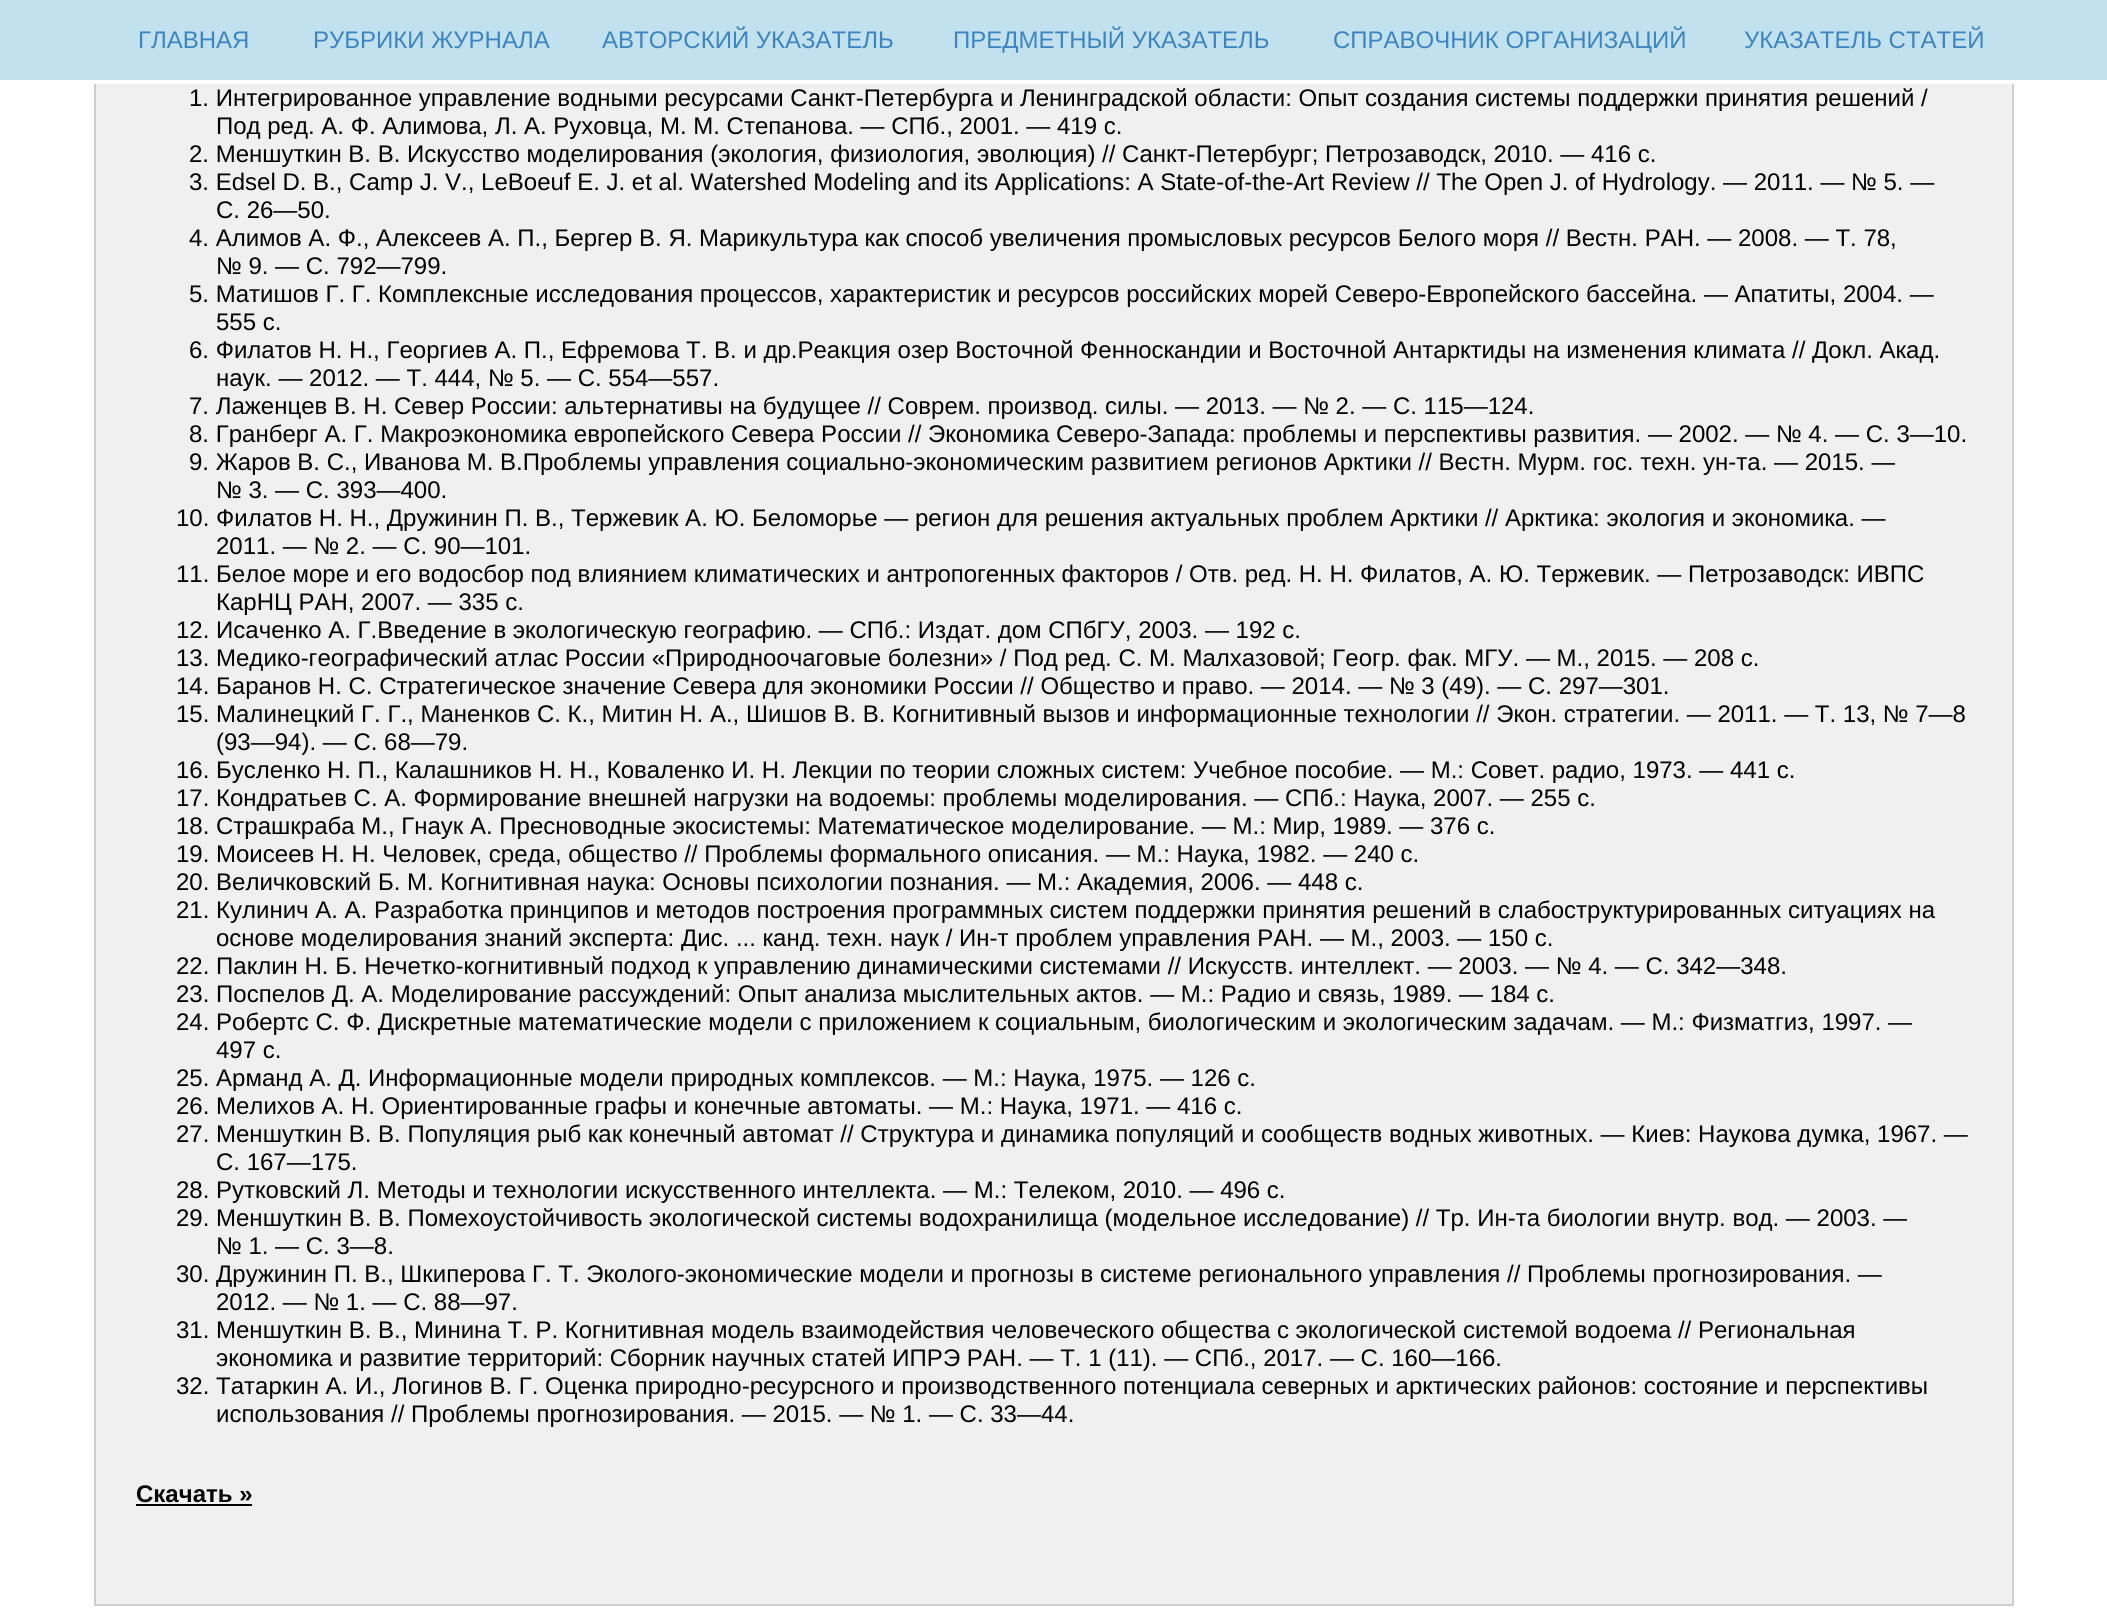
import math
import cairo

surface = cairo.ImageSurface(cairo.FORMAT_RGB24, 2107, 1611)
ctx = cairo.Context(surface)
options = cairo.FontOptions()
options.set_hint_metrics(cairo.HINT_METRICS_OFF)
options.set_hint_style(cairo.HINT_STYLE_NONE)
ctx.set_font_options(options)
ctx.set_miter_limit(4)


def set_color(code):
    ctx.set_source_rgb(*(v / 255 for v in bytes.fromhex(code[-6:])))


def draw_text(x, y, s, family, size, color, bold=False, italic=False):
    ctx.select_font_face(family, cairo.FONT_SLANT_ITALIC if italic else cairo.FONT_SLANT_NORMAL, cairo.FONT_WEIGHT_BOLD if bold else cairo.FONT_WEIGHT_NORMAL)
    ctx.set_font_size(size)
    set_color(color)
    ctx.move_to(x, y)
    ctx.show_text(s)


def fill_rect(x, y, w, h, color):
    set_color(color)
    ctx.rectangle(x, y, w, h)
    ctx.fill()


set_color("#ffffff")
ctx.paint()
fill_rect(0, 0, 2107, 80, "#c1e1ef")
draw_text(138, 48, "ГЛАВНАЯ", "Liberation Sans", 24, "#3e84bf")
draw_text(313, 48, "РУБРИКИ ЖУРНАЛА", "Liberation Sans", 24, "#3e84bf")
draw_text(602, 48, "АВТОРСКИЙ УКАЗАТЕЛЬ", "Liberation Sans", 24, "#3e84bf")
draw_text(953, 48, "ПРЕДМЕТНЫЙ УКАЗАТЕЛЬ", "Liberation Sans", 24, "#3e84bf")
draw_text(1333, 48, "СПРАВОЧНИК ОРГАНИЗАЦИЙ", "Liberation Sans", 24, "#3e84bf")
draw_text(1744, 48, "УКАЗАТЕЛЬ СТАТЕЙ", "Liberation Sans", 24, "#3e84bf")
fill_rect(96, 84, 1916, 1520, "#f0f0f0")
fill_rect(2012, 84, 2, 1522, "#cecece")
fill_rect(94, 1604, 1920, 2, "#cecece")
fill_rect(94, 84, 2, 1522, "#cecece")
draw_text(189, 106, "1. Интегрированное управление водными ресурсами Санкт-Петербурга и Ленинградской области: Опыт создания системы поддержки принятия решений /", "Liberation Sans", 24, "#000000")
draw_text(216, 134, "Под ред. А. Ф. Алимова, Л. А. Руховца, М. М. Степанова. — СПб., 2001. — 419 c.", "Liberation Sans", 24, "#000000")
draw_text(189, 162, "2. Меншуткин В. В. Искусство моделирования (экология, физиология, эволюция) // Санкт-Петербург; Петрозаводск, 2010. — 416 c.", "Liberation Sans", 24, "#000000")
draw_text(189, 190, "3. Edsel D. B., Camp J. V., LeBoeuf E. J. et al. Watershed Modeling and its Applications: A State-of-the-Art Review // The Open J. of Hydrology. — 2011. — № 5. —", "Liberation Sans", 24, "#000000")
draw_text(216, 218, "С. 26—50.", "Liberation Sans", 24, "#000000")
draw_text(189, 246, "4. Алимов А. Ф., Алексеев А. П., Бергер В. Я. Марикультура как способ увеличения промысловых ресурсов Белого моря // Вестн. РАН. — 2008. — Т. 78,", "Liberation Sans", 24, "#000000")
draw_text(216, 274, "№ 9. — С. 792—799.", "Liberation Sans", 24, "#000000")
draw_text(189, 302, "5. Матишов Г. Г. Комплексные исследования процессов, характеристик и ресурсов российских морей Северо-Европейского бассейна. — Апатиты, 2004. —", "Liberation Sans", 24, "#000000")
draw_text(216, 330, "555 с.", "Liberation Sans", 24, "#000000")
draw_text(189, 358, "6. Филатов Н. Н., Георгиев А. П., Ефремова Т. В. и др.Реакция озер Восточной Фенноскандии и Восточной Антарктиды на изменения климата // Докл. Акад.", "Liberation Sans", 24, "#000000")
draw_text(216, 386, "наук. — 2012. — Т. 444, № 5. — С. 554—557.", "Liberation Sans", 24, "#000000")
draw_text(189, 414, "7. Лаженцев В. Н. Север России: альтернативы на будущее // Соврем. производ. силы. — 2013. — № 2. — С. 115—124.", "Liberation Sans", 24, "#000000")
draw_text(189, 442, "8. Гранберг А. Г. Макроэкономика европейского Севера России // Экономика Северо-Запада: проблемы и перспективы развития. — 2002. — № 4. — C. 3—10.", "Liberation Sans", 24, "#000000")
draw_text(189, 470, "9. Жаров В. С., Иванова М. В.Проблемы управления социально-экономическим развитием регионов Арктики // Вестн. Мурм. гос. техн. ун-та. — 2015. —", "Liberation Sans", 24, "#000000")
draw_text(216, 498, "№ 3. — C. 393—400.", "Liberation Sans", 24, "#000000")
draw_text(176, 526, "10. Филатов Н. Н., Дружинин П. В., Тержевик А. Ю. Беломорье — регион для решения актуальных проблем Арктики // Арктика: экология и экономика. —", "Liberation Sans", 24, "#000000")
draw_text(216, 554, "2011. — № 2. — С. 90—101.", "Liberation Sans", 24, "#000000")
draw_text(176, 582, "11. Белое море и его водосбор под влиянием климатических и антропогенных факторов / Отв. ред. Н. Н. Филатов, А. Ю. Тержевик. — Петрозаводск: ИВПС", "Liberation Sans", 24, "#000000")
draw_text(216, 610, "КарНЦ РАН, 2007. — 335 с.", "Liberation Sans", 24, "#000000")
draw_text(176, 638, "12. Исаченко А. Г.Введение в экологическую географию. — СПб.: Издат. дом СПбГУ, 2003. — 192 с.", "Liberation Sans", 24, "#000000")
draw_text(176, 666, "13. Медико-географический атлас России «Природноочаговые болезни» / Под ред. С. М. Малхазовой; Геогр. фак. МГУ. — М., 2015. — 208 с.", "Liberation Sans", 24, "#000000")
draw_text(176, 694, "14. Баранов Н. С. Стратегическое значение Севера для экономики России // Общество и право. — 2014. — № 3 (49). — C. 297—301.", "Liberation Sans", 24, "#000000")
draw_text(176, 722, "15. Малинецкий Г. Г., Маненков С. К., Митин Н. А., Шишов В. В. Когнитивный вызов и информационные технологии // Экон. стратегии. — 2011. — Т. 13, № 7—8", "Liberation Sans", 24, "#000000")
draw_text(216, 750, "(93—94). — С. 68—79.", "Liberation Sans", 24, "#000000")
draw_text(176, 778, "16. Бусленко Н. П., Калашников Н. Н., Коваленко И. Н. Лекции по теории сложных систем: Учебное пособие. — М.: Совет. радио, 1973. — 441 с.", "Liberation Sans", 24, "#000000")
draw_text(176, 806, "17. Кондратьев С. А. Формирование внешней нагрузки на водоемы: проблемы моделирования. — СПб.: Наука, 2007. — 255 c.", "Liberation Sans", 24, "#000000")
draw_text(176, 834, "18. Страшкраба М., Гнаук А. Пресноводные экосистемы: Математическое моделирование. — М.: Мир, 1989. — 376 c.", "Liberation Sans", 24, "#000000")
draw_text(176, 862, "19. Моисеев Н. Н. Человек, среда, общество // Проблемы формального описания. — М.: Наука, 1982. — 240 с.", "Liberation Sans", 24, "#000000")
draw_text(176, 890, "20. Величковский Б. М. Когнитивная наука: Основы психологии познания. — М.: Академия, 2006. — 448 с.", "Liberation Sans", 24, "#000000")
draw_text(176, 918, "21. Кулинич А. А. Разработка принципов и методов построения программных систем поддержки принятия решений в слабоструктурированных ситуациях на", "Liberation Sans", 24, "#000000")
draw_text(216, 946, "основе моделирования знаний эксперта: Дис. ... канд. техн. наук / Ин-т проблем управления РАН. — М., 2003. — 150 c.", "Liberation Sans", 24, "#000000")
draw_text(176, 974, "22. Паклин Н. Б. Нечетко-когнитивный подход к управлению динамическими системами // Искусств. интеллект. — 2003. — № 4. — С. 342—348.", "Liberation Sans", 24, "#000000")
draw_text(176, 1002, "23. Поспелов Д. А. Моделирование рассуждений: Опыт анализа мыслительных актов. — М.: Радио и связь, 1989. — 184 c.", "Liberation Sans", 24, "#000000")
draw_text(176, 1030, "24. Робертс С. Ф. Дискретные математические модели с приложением к социальным, биологическим и экологическим задачам. — М.: Физматгиз, 1997. —", "Liberation Sans", 24, "#000000")
draw_text(216, 1058, "497 c.", "Liberation Sans", 24, "#000000")
draw_text(176, 1086, "25. Арманд А. Д. Информационные модели природных комплексов. — М.: Наука, 1975. — 126 с.", "Liberation Sans", 24, "#000000")
draw_text(176, 1114, "26. Мелихов А. Н. Ориентированные графы и конечные автоматы. — М.: Наука, 1971. — 416 с.", "Liberation Sans", 24, "#000000")
draw_text(176, 1142, "27. Меншуткин В. В. Популяция рыб как конечный автомат // Структура и динамика популяций и сообществ водных животных. — Киев: Наукова думка, 1967. —", "Liberation Sans", 24, "#000000")
draw_text(216, 1170, "C. 167—175.", "Liberation Sans", 24, "#000000")
draw_text(176, 1198, "28. Рутковский Л. Методы и технологии искусственного интеллекта. — М.: Телеком, 2010. — 496 с.", "Liberation Sans", 24, "#000000")
draw_text(176, 1226, "29. Меншуткин В. В. Помехоустойчивость экологической системы водохранилища (модельное исследование) // Тр. Ин-та биологии внутр. вод. — 2003. —", "Liberation Sans", 24, "#000000")
draw_text(216, 1254, "№ 1. — С. 3—8.", "Liberation Sans", 24, "#000000")
draw_text(176, 1282, "30. Дружинин П. В., Шкиперова Г. Т. Эколого-экономические модели и прогнозы в системе регионального управления // Проблемы прогнозирования. —", "Liberation Sans", 24, "#000000")
draw_text(216, 1310, "2012. — № 1. — C. 88—97.", "Liberation Sans", 24, "#000000")
draw_text(176, 1338, "31. Меншуткин В. В., Минина Т. Р. Когнитивная модель взаимодействия человеческого общества с экологической системой водоема // Региональная", "Liberation Sans", 24, "#000000")
draw_text(216, 1366, "экономика и развитие территорий: Сборник научных статей ИПРЭ РАН. — Т. 1 (11). — СПб., 2017. — C. 160—166.", "Liberation Sans", 24, "#000000")
draw_text(176, 1394, "32. Татаркин А. И., Логинов В. Г. Оценка природно-ресурсного и производственного потенциала северных и арктических районов: состояние и перспективы", "Liberation Sans", 24, "#000000")
draw_text(216, 1422, "использования // Проблемы прогнозирования. — 2015. — № 1. — С. 33—44.", "Liberation Sans", 24, "#000000")
draw_text(136, 1502, "Скачать »", "Liberation Sans", 24, "#000000", bold=True)
fill_rect(136, 1504, 116, 2, "#000000")
surface.write_to_png("output.png")
